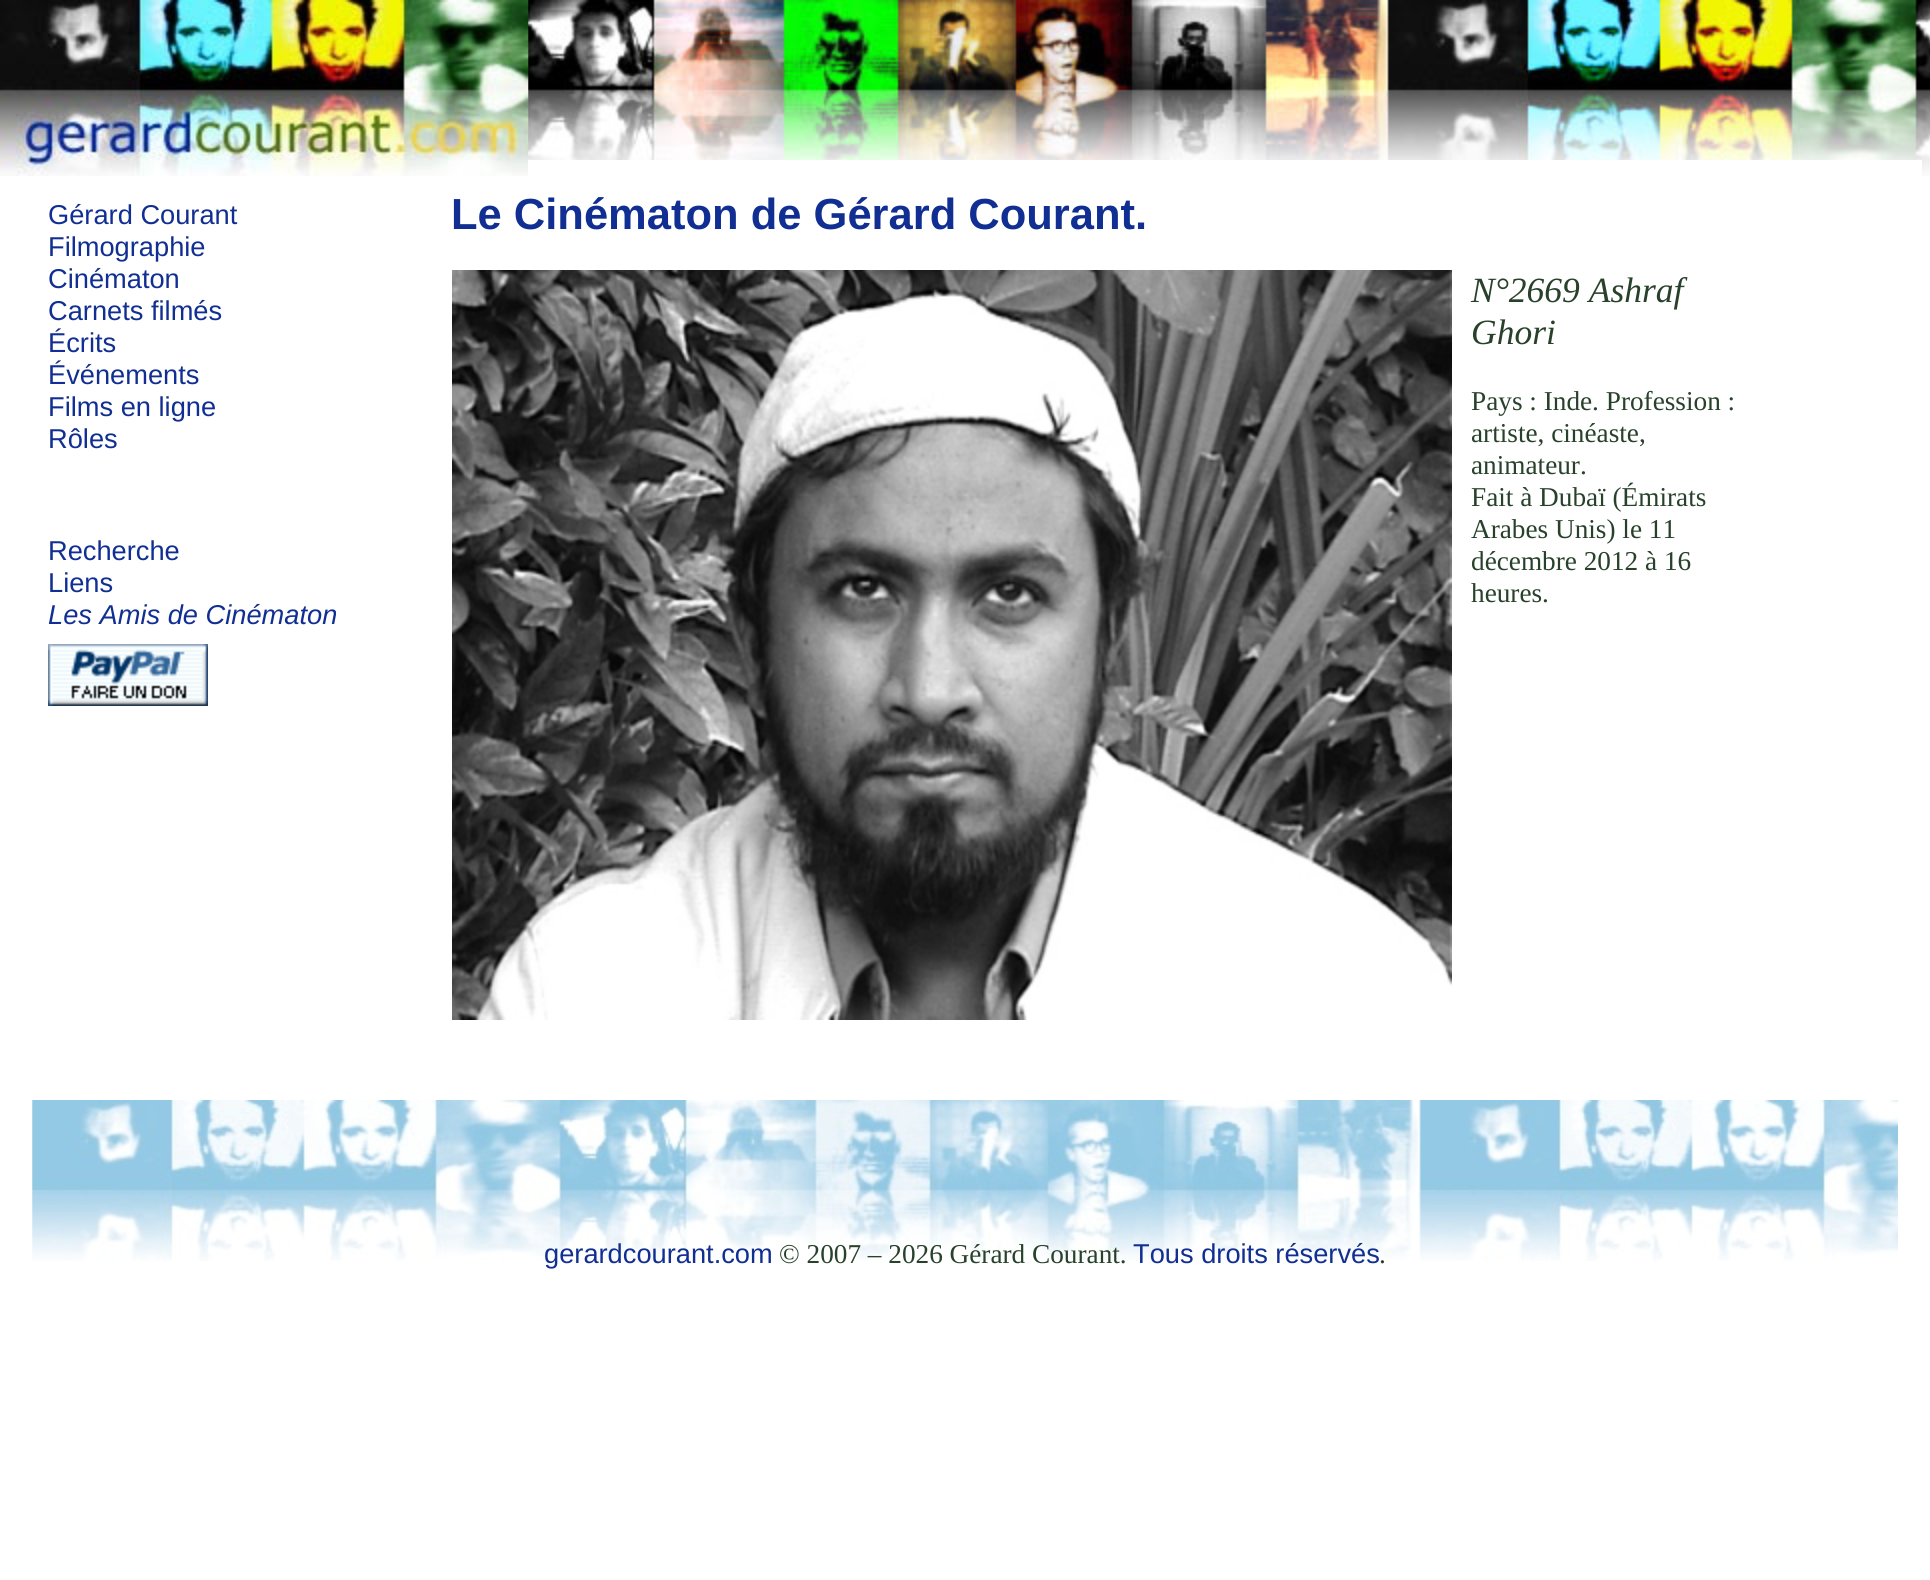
import math
import cairo

surface = cairo.ImageSurface(cairo.FORMAT_RGB24, 1930, 1580)
ctx = cairo.Context(surface)
options = cairo.FontOptions()
options.set_hint_metrics(cairo.HINT_METRICS_OFF)
options.set_hint_style(cairo.HINT_STYLE_NONE)
ctx.set_font_options(options)
ctx.set_miter_limit(4)


def set_color(code):
    ctx.set_source_rgb(*(v / 255 for v in bytes.fromhex(code[-6:])))


def draw_text(x, y, s, family, size, color, bold=False, italic=False):
    ctx.select_font_face(family, cairo.FONT_SLANT_ITALIC if italic else cairo.FONT_SLANT_NORMAL, cairo.FONT_WEIGHT_BOLD if bold else cairo.FONT_WEIGHT_NORMAL)
    ctx.set_font_size(size)
    set_color(color)
    ctx.move_to(x, y)
    ctx.show_text(s)


def fill_rect(x, y, w, h, color):
    set_color(color)
    ctx.rectangle(x, y, w, h)
    ctx.fill()


def draw_image(path, x, y, w, h):
    ctx.save()
    ctx.set_source_surface(cairo.ImageSurface.create_from_png(path), x, y)
    ctx.rectangle(x, y, w, h)
    ctx.fill()
    ctx.restore()


set_color("#ffffff")
ctx.paint()
draw_image("assets/img1.png", 528, 0, 1402, 176)
draw_image("assets/img2.png", 0, 0, 528, 176)
fill_rect(528, 160, 1394, 16, "#ffffff")
draw_text(48, 224, "Gérard Courant", "Liberation Sans", 27.25, "#112f92")
draw_text(48, 256, "Filmographie", "Liberation Sans", 27.25, "#112f92")
draw_text(48, 288, "Cinématon", "Liberation Sans", 27.25, "#112f92")
draw_text(48, 320, "Carnets filmés", "Liberation Sans", 27.25, "#112f92")
draw_text(48, 352, "Écrits", "Liberation Sans", 27.25, "#112f92")
draw_text(48, 384, "Événements", "Liberation Sans", 27.25, "#112f92")
draw_text(48, 416, "Films en ligne", "Liberation Sans", 27.25, "#112f92")
draw_text(48, 448, "Rôles", "Liberation Sans", 27.25, "#112f92")
draw_text(48, 560, "Recherche", "Liberation Sans", 27.25, "#112f92")
draw_text(48, 592, "Liens", "Liberation Sans", 27.25, "#112f92")
draw_text(48, 624, "Les Amis de Cinématon", "Liberation Sans", 27.25, "#112f92", italic=True)
draw_image("assets/img3.png", 48, 644, 160, 62)
draw_text(451, 229, "Le Cinématon de Gérard Courant.", "Liberation Sans", 43.5, "#112f92", bold=True)
draw_image("assets/img4.png", 452, 270, 1000, 750)
draw_text(1471, 302, "N°2669 Ashraf", "Liberation Serif", 35.5, "#27412a", italic=True)
draw_text(1471, 344, "Ghori", "Liberation Serif", 35.5, "#27412a", italic=True)
draw_text(1471, 410, "Pays : Inde. Profession :", "Liberation Serif", 27.25, "#27412a")
draw_text(1471, 442, "artiste, cinéaste,", "Liberation Serif", 27.25, "#27412a")
draw_text(1471, 474, "animateur.", "Liberation Serif", 27.25, "#27412a")
draw_text(1471, 506, "Fait à Dubaï (Émirats", "Liberation Serif", 27.25, "#27412a")
draw_text(1471, 538, "Arabes Unis) le 11", "Liberation Serif", 27.25, "#27412a")
draw_text(1471, 570, "décembre 2012 à 16", "Liberation Serif", 27.25, "#27412a")
draw_text(1471, 602, "heures.", "Liberation Serif", 27.25, "#27412a")
draw_image("assets/img5.png", 32, 1100, 1866, 161)
draw_text(544, 1263, "gerardcourant.com", "Liberation Sans", 27.25, "#112f92")
draw_text(779, 1263, "© 2007 – 2026 Gérard Courant.", "Liberation Serif", 27.25, "#27412a")
draw_text(1133, 1263, "Tous droits réservés", "Liberation Sans", 27.25, "#112f92")
draw_text(1379, 1263, ".", "Liberation Serif", 27.25, "#27412a")
surface.write_to_png("output.png")
